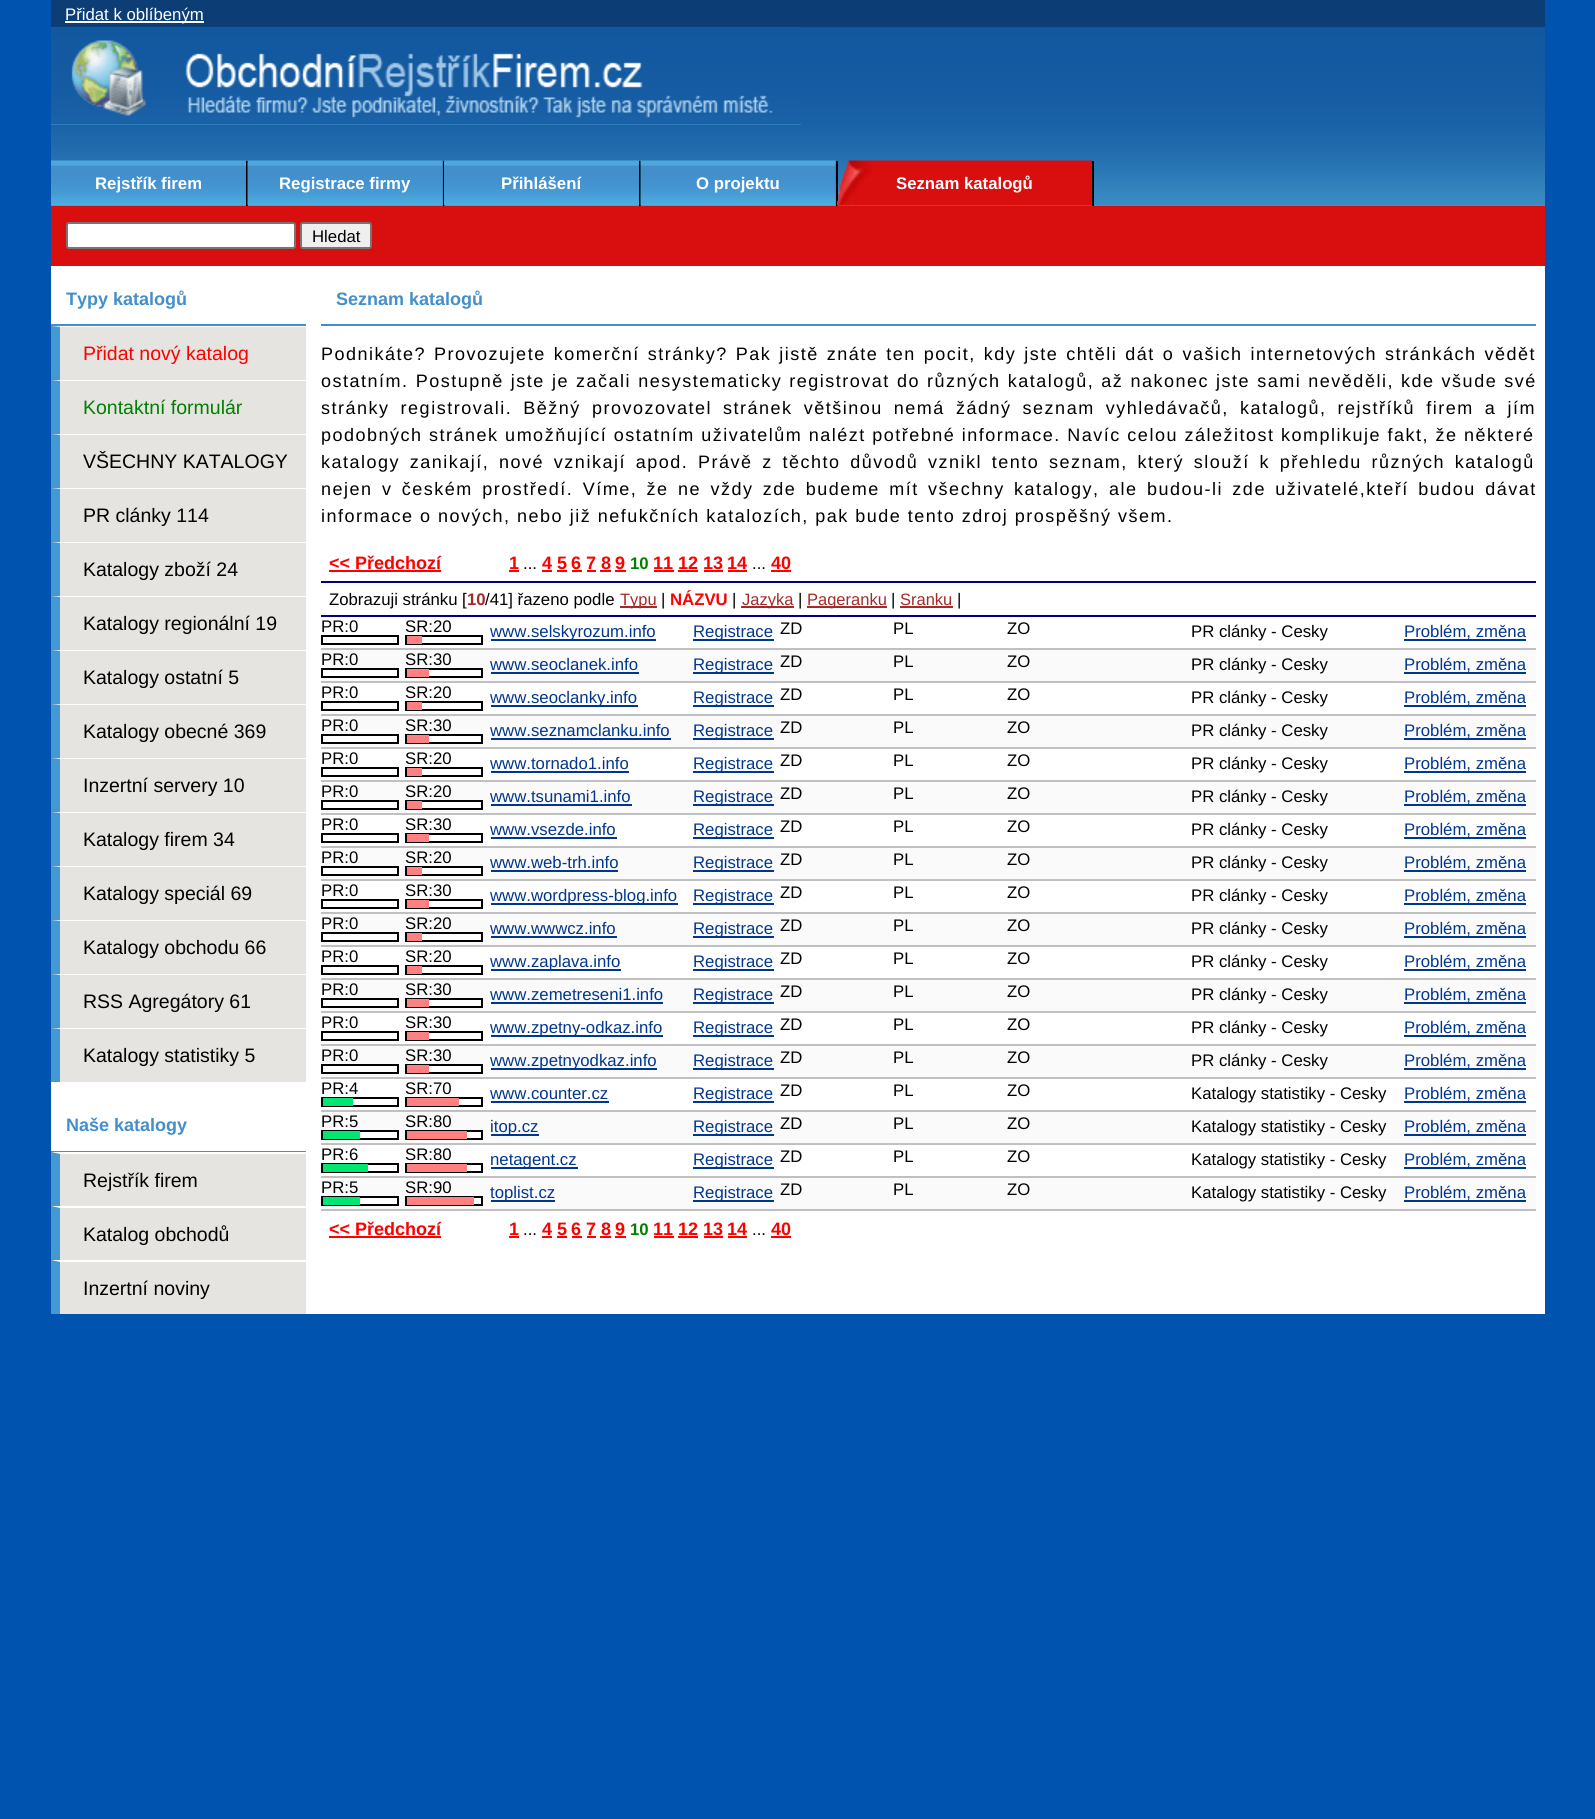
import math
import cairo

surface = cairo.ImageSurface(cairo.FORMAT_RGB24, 1595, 1819)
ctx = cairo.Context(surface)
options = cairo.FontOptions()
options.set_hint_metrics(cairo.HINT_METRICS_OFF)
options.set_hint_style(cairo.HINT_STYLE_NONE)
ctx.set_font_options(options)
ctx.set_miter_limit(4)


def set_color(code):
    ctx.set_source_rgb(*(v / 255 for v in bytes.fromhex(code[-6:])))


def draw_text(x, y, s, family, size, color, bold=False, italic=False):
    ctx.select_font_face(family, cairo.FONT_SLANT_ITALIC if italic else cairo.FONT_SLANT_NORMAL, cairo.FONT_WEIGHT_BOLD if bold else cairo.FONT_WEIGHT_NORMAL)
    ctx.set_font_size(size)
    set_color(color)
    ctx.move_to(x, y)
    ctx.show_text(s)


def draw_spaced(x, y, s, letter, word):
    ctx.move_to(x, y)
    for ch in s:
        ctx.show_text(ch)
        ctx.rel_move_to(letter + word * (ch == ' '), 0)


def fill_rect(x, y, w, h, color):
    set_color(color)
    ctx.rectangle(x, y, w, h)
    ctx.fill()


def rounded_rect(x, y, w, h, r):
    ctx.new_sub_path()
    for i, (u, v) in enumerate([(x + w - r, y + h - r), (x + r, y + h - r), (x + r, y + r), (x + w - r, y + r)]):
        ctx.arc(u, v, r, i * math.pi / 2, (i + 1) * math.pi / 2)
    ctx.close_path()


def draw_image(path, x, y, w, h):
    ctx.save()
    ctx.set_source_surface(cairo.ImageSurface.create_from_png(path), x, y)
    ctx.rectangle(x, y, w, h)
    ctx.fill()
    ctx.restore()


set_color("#0054b0")
ctx.paint()
fill_rect(51, 205, 1494, 1, "#4396ca")
draw_image("assets/img1.png", 51, 0, 1494, 206)
fill_rect(65, 21, 139, 2, "#ffffff")
draw_text(65, 20, "Přidat k oblíbeným", "Liberation Sans", 16.75, "#ffffff")
fill_rect(51, 124, 750, 1, "#4396ca")
draw_image("assets/img2.png", 51, 27, 750, 98)
draw_image("assets/img3.png", 51, 160, 195, 46)
draw_text(95, 189, "Rejstřík firem", "Liberation Sans", 16.75, "#ffffff", bold=True)
fill_rect(246, 161, 2, 45, "#000000")
draw_image("assets/img4.png", 247, 160, 196, 46)
draw_text(279, 189, "Registrace firmy", "Liberation Sans", 16.75, "#ffffff", bold=True)
fill_rect(443, 161, 2, 45, "#000000")
draw_image("assets/img5.png", 444, 160, 195, 46)
draw_text(501, 189, "Přihlášení", "Liberation Sans", 16.75, "#ffffff", bold=True)
fill_rect(639, 161, 2, 45, "#000000")
draw_image("assets/img4.png", 640, 160, 196, 46)
draw_text(696, 189, "O projektu", "Liberation Sans", 16.75, "#ffffff", bold=True)
fill_rect(836, 161, 2, 45, "#000000")
draw_image("assets/img6.png", 837, 160, 255, 46)
draw_text(896, 189, "Seznam katalogů", "Liberation Sans", 16.75, "#ffffff", bold=True)
fill_rect(1092, 161, 2, 45, "#000000")
fill_rect(51, 206, 1494, 60, "#d90f0f")
set_color("#ffffff")
rounded_rect(67, 223, 228, 25, 2)
ctx.fill_preserve()
set_color("#767676")
ctx.stroke()
set_color("#efefef")
rounded_rect(301, 223, 70, 25, 2)
ctx.fill_preserve()
set_color("#767676")
ctx.stroke()
draw_text(312, 242, "Hledat", "Liberation Sans", 16.75, "#000000")
fill_rect(51, 266, 1494, 1048, "#ffffff")
fill_rect(51, 324, 255, 2, "#438fcb")
draw_text(66, 305, "Typy katalogů", "Liberation Sans", 18, "#438fcb", bold=True)
fill_rect(51, 326, 255, 756, "#e5e4e1")
set_color("#ffffff")
ctx.new_path()
ctx.move_to(51, 326)
ctx.line_to(308, 326)
ctx.line_to(308, 327)
ctx.line_to(60, 327)
ctx.close_path()
ctx.fill()
set_color("#4498d4")
ctx.new_path()
ctx.move_to(51, 380)
ctx.line_to(51, 326)
ctx.line_to(60, 327)
ctx.line_to(60, 380)
ctx.close_path()
ctx.fill()
draw_text(83, 360, "Přidat nový katalog", "Liberation Sans", 19.5, "#ff0000")
set_color("#ffffff")
ctx.new_path()
ctx.move_to(51, 380)
ctx.line_to(308, 380)
ctx.line_to(308, 381)
ctx.line_to(60, 381)
ctx.close_path()
ctx.fill()
set_color("#4498d4")
ctx.new_path()
ctx.move_to(51, 434)
ctx.line_to(51, 380)
ctx.line_to(60, 381)
ctx.line_to(60, 434)
ctx.close_path()
ctx.fill()
draw_text(83, 414, "Kontaktní formulár", "Liberation Sans", 19.5, "#008000")
set_color("#ffffff")
ctx.new_path()
ctx.move_to(51, 434)
ctx.line_to(308, 434)
ctx.line_to(308, 435)
ctx.line_to(60, 435)
ctx.close_path()
ctx.fill()
set_color("#4498d4")
ctx.new_path()
ctx.move_to(51, 488)
ctx.line_to(51, 434)
ctx.line_to(60, 435)
ctx.line_to(60, 488)
ctx.close_path()
ctx.fill()
draw_text(83, 468, "VŠECHNY KATALOGY", "Liberation Sans", 19.5, "#000000")
set_color("#ffffff")
ctx.new_path()
ctx.move_to(51, 488)
ctx.line_to(308, 488)
ctx.line_to(308, 489)
ctx.line_to(60, 489)
ctx.close_path()
ctx.fill()
set_color("#4498d4")
ctx.new_path()
ctx.move_to(51, 542)
ctx.line_to(51, 488)
ctx.line_to(60, 489)
ctx.line_to(60, 542)
ctx.close_path()
ctx.fill()
draw_text(83, 522, "PR clánky 114", "Liberation Sans", 19.5, "#000000")
set_color("#ffffff")
ctx.new_path()
ctx.move_to(51, 542)
ctx.line_to(308, 542)
ctx.line_to(308, 543)
ctx.line_to(60, 543)
ctx.close_path()
ctx.fill()
set_color("#4498d4")
ctx.new_path()
ctx.move_to(51, 596)
ctx.line_to(51, 542)
ctx.line_to(60, 543)
ctx.line_to(60, 596)
ctx.close_path()
ctx.fill()
draw_text(83, 576, "Katalogy zboží 24", "Liberation Sans", 19.5, "#000000")
set_color("#ffffff")
ctx.new_path()
ctx.move_to(51, 596)
ctx.line_to(308, 596)
ctx.line_to(308, 597)
ctx.line_to(60, 597)
ctx.close_path()
ctx.fill()
set_color("#4498d4")
ctx.new_path()
ctx.move_to(51, 650)
ctx.line_to(51, 596)
ctx.line_to(60, 597)
ctx.line_to(60, 650)
ctx.close_path()
ctx.fill()
draw_text(83, 630, "Katalogy regionální 19", "Liberation Sans", 19.5, "#000000")
set_color("#ffffff")
ctx.new_path()
ctx.move_to(51, 650)
ctx.line_to(308, 650)
ctx.line_to(308, 651)
ctx.line_to(60, 651)
ctx.close_path()
ctx.fill()
set_color("#4498d4")
ctx.new_path()
ctx.move_to(51, 704)
ctx.line_to(51, 650)
ctx.line_to(60, 651)
ctx.line_to(60, 704)
ctx.close_path()
ctx.fill()
draw_text(83, 684, "Katalogy ostatní 5", "Liberation Sans", 19.5, "#000000")
set_color("#ffffff")
ctx.new_path()
ctx.move_to(51, 704)
ctx.line_to(308, 704)
ctx.line_to(308, 705)
ctx.line_to(60, 705)
ctx.close_path()
ctx.fill()
set_color("#4498d4")
ctx.new_path()
ctx.move_to(51, 758)
ctx.line_to(51, 704)
ctx.line_to(60, 705)
ctx.line_to(60, 758)
ctx.close_path()
ctx.fill()
draw_text(83, 738, "Katalogy obecné 369", "Liberation Sans", 19.5, "#000000")
set_color("#ffffff")
ctx.new_path()
ctx.move_to(51, 758)
ctx.line_to(308, 758)
ctx.line_to(308, 759)
ctx.line_to(60, 759)
ctx.close_path()
ctx.fill()
set_color("#4498d4")
ctx.new_path()
ctx.move_to(51, 812)
ctx.line_to(51, 758)
ctx.line_to(60, 759)
ctx.line_to(60, 812)
ctx.close_path()
ctx.fill()
draw_text(83, 792, "Inzertní servery 10", "Liberation Sans", 19.5, "#000000")
set_color("#ffffff")
ctx.new_path()
ctx.move_to(51, 812)
ctx.line_to(308, 812)
ctx.line_to(308, 813)
ctx.line_to(60, 813)
ctx.close_path()
ctx.fill()
set_color("#4498d4")
ctx.new_path()
ctx.move_to(51, 866)
ctx.line_to(51, 812)
ctx.line_to(60, 813)
ctx.line_to(60, 866)
ctx.close_path()
ctx.fill()
draw_text(83, 846, "Katalogy firem 34", "Liberation Sans", 19.5, "#000000")
set_color("#ffffff")
ctx.new_path()
ctx.move_to(51, 866)
ctx.line_to(308, 866)
ctx.line_to(308, 867)
ctx.line_to(60, 867)
ctx.close_path()
ctx.fill()
set_color("#4498d4")
ctx.new_path()
ctx.move_to(51, 920)
ctx.line_to(51, 866)
ctx.line_to(60, 867)
ctx.line_to(60, 920)
ctx.close_path()
ctx.fill()
draw_text(83, 900, "Katalogy speciál 69", "Liberation Sans", 19.5, "#000000")
set_color("#ffffff")
ctx.new_path()
ctx.move_to(51, 920)
ctx.line_to(308, 920)
ctx.line_to(308, 921)
ctx.line_to(60, 921)
ctx.close_path()
ctx.fill()
set_color("#4498d4")
ctx.new_path()
ctx.move_to(51, 974)
ctx.line_to(51, 920)
ctx.line_to(60, 921)
ctx.line_to(60, 974)
ctx.close_path()
ctx.fill()
draw_text(83, 954, "Katalogy obchodu 66", "Liberation Sans", 19.5, "#000000")
set_color("#ffffff")
ctx.new_path()
ctx.move_to(51, 974)
ctx.line_to(308, 974)
ctx.line_to(308, 975)
ctx.line_to(60, 975)
ctx.close_path()
ctx.fill()
set_color("#4498d4")
ctx.new_path()
ctx.move_to(51, 1028)
ctx.line_to(51, 974)
ctx.line_to(60, 975)
ctx.line_to(60, 1028)
ctx.close_path()
ctx.fill()
draw_text(83, 1008, "RSS Agregátory 61", "Liberation Sans", 19.5, "#000000")
set_color("#ffffff")
ctx.new_path()
ctx.move_to(51, 1028)
ctx.line_to(308, 1028)
ctx.line_to(308, 1029)
ctx.line_to(60, 1029)
ctx.close_path()
ctx.fill()
set_color("#4498d4")
ctx.new_path()
ctx.move_to(51, 1082)
ctx.line_to(51, 1028)
ctx.line_to(60, 1029)
ctx.line_to(60, 1082)
ctx.close_path()
ctx.fill()
draw_text(83, 1062, "Katalogy statistiky 5", "Liberation Sans", 19.5, "#000000")
fill_rect(51, 1151, 255, 1, "#438fcb")
draw_text(66, 1131, "Naše katalogy", "Liberation Sans", 18, "#438fcb", bold=True)
fill_rect(51, 1152, 255, 162, "#e5e4e1")
ctx.save()
ctx.rectangle(51, 266, 255, 1048)
ctx.clip()
set_color("#ffffff")
ctx.new_path()
ctx.move_to(51, 1152)
ctx.line_to(308, 1152)
ctx.line_to(308, 1154)
ctx.line_to(60, 1154)
ctx.close_path()
ctx.fill()
ctx.restore()
set_color("#4498d4")
ctx.new_path()
ctx.move_to(51, 1206)
ctx.line_to(51, 1152)
ctx.line_to(60, 1154)
ctx.line_to(60, 1206)
ctx.close_path()
ctx.fill()
draw_text(83, 1187, "Rejstřík firem", "Liberation Sans", 19.5, "#000000")
ctx.save()
ctx.rectangle(51, 266, 255, 1048)
ctx.clip()
set_color("#ffffff")
ctx.new_path()
ctx.move_to(51, 1206)
ctx.line_to(308, 1206)
ctx.line_to(308, 1208)
ctx.line_to(60, 1208)
ctx.close_path()
ctx.fill()
ctx.restore()
set_color("#4498d4")
ctx.new_path()
ctx.move_to(51, 1260)
ctx.line_to(51, 1206)
ctx.line_to(60, 1208)
ctx.line_to(60, 1260)
ctx.close_path()
ctx.fill()
draw_text(83, 1241, "Katalog obchodů", "Liberation Sans", 19.5, "#000000")
ctx.save()
ctx.rectangle(51, 266, 255, 1048)
ctx.clip()
set_color("#ffffff")
ctx.new_path()
ctx.move_to(51, 1260)
ctx.line_to(308, 1260)
ctx.line_to(308, 1262)
ctx.line_to(60, 1262)
ctx.close_path()
ctx.fill()
ctx.restore()
set_color("#4498d4")
ctx.new_path()
ctx.move_to(51, 1314)
ctx.line_to(51, 1260)
ctx.line_to(60, 1262)
ctx.line_to(60, 1314)
ctx.close_path()
ctx.fill()
draw_text(83, 1295, "Inzertní noviny", "Liberation Sans", 19.5, "#000000")
fill_rect(321, 324, 1215, 2, "#438fcb")
draw_text(336, 305, "Seznam katalogů", "Liberation Sans", 18, "#438fcb", bold=True)
ctx.select_font_face("Liberation Sans")
set_color("#000000")
draw_spaced(321, 360, "Podnikáte? Provozujete komerční stránky? Pak jistě znáte ten pocit, kdy jste chtěli dát o vašich internetových stránkách vědět", 1.5, 1.5)
draw_spaced(321, 387, "ostatním. Postupně jste je začali nesystematicky registrovat do různých katalogů, až nakonec jste sami nevěděli, kde všude své", 1.5, 0.6)
draw_spaced(321, 414, "stránky registrovali. Běžný provozovatel stránek většinou nemá žádný seznam vyhledávačů, katalogů, rejstříků firem a jím", 1.5, 4.6)
draw_spaced(321, 441, "podobných stránek umožňující ostatním uživatelům nalézt potřebné informace. Navíc celou záležitost komplikuje fakt, že některé", 1.5, 0)
draw_spaced(321, 468, "katalogy zanikají, nové vznikají apod. Právě z těchto důvodů vznikl tento seznam, který slouží k přehledu různých katalogů", 1.5, 3.25)
draw_spaced(321, 495, "nejen v českém prostředí. Víme, že ne vždy zde budeme mít všechny katalogy, ale budou-li zde uživatelé,kteří budou dávat", 1.5, 2.9)
draw_spaced(321, 522, "informace o nových, nebo již nefukčních katalozích, pak bude tento zdroj prospěšný všem.", 1.5, 0)
draw_text(329, 569, "<< Předchozí", "Liberation Sans", 18, "#ff0000", bold=True)
fill_rect(329, 570, 112, 2, "#ff0000")
draw_text(509, 569, "1", "Liberation Sans", 18, "#ff0000", bold=True)
fill_rect(509, 570, 10, 2, "#ff0000")
draw_text(523, 569, "...", "Liberation Sans", 16.75, "#000000")
draw_text(542, 569, "4", "Liberation Sans", 18, "#ff0000", bold=True)
fill_rect(542, 570, 10, 2, "#ff0000")
draw_text(557, 569, "5", "Liberation Sans", 18, "#ff0000", bold=True)
fill_rect(557, 570, 10, 2, "#ff0000")
draw_text(571, 569, "6", "Liberation Sans", 18, "#ff0000", bold=True)
fill_rect(572, 570, 10, 2, "#ff0000")
draw_text(586, 569, "7", "Liberation Sans", 18, "#ff0000", bold=True)
fill_rect(587, 570, 9, 2, "#ff0000")
draw_text(601, 569, "8", "Liberation Sans", 18, "#ff0000", bold=True)
fill_rect(600, 570, 11, 2, "#ff0000")
draw_text(615, 569, "9", "Liberation Sans", 18, "#ff0000", bold=True)
fill_rect(615, 570, 11, 2, "#ff0000")
draw_text(630, 569, "10", "Liberation Sans", 16.75, "#008000", bold=True)
draw_text(653, 569, "11", "Liberation Sans", 18, "#ff0000", bold=True)
fill_rect(654, 570, 20, 2, "#ff0000")
draw_text(678, 569, "12", "Liberation Sans", 18, "#ff0000", bold=True)
fill_rect(678, 570, 20, 2, "#ff0000")
draw_text(703, 569, "13", "Liberation Sans", 18, "#ff0000", bold=True)
fill_rect(704, 570, 19, 2, "#ff0000")
draw_text(727, 569, "14", "Liberation Sans", 18, "#ff0000", bold=True)
fill_rect(728, 570, 19, 2, "#ff0000")
draw_text(752, 569, "...", "Liberation Sans", 16.75, "#000000")
draw_text(771, 569, "40", "Liberation Sans", 18, "#ff0000", bold=True)
fill_rect(771, 570, 20, 2, "#ff0000")
fill_rect(321, 581, 1215, 2, "#000080")
fill_rect(321, 615, 1215, 2, "#000080")
draw_text(329, 605, "Zobrazuji stránku [", "Liberation Sans", 16.75, "#000000")
draw_text(467, 605, "10", "Liberation Sans", 16.75, "#a52a2a", bold=True)
draw_text(485, 605, "/41] řazeno podle", "Liberation Sans", 16.75, "#000000")
fill_rect(620, 606, 37, 2, "#a52a2a")
draw_text(620, 605, "Typu", "Liberation Sans", 16.5, "#a52a2a")
draw_text(661, 605, "|", "Liberation Sans", 16.75, "#000000")
draw_text(670, 605, "NÁZVU", "Liberation Sans", 16.75, "#ff0000", bold=True)
draw_text(732, 605, "|", "Liberation Sans", 16.75, "#000000")
fill_rect(741, 606, 53, 2, "#a52a2a")
draw_text(742, 605, "Jazyka", "Liberation Sans", 16.5, "#a52a2a")
draw_text(798, 605, "|", "Liberation Sans", 16.75, "#000000")
fill_rect(807, 606, 80, 2, "#a52a2a")
draw_text(807, 605, "Pageranku", "Liberation Sans", 16.5, "#a52a2a")
draw_text(891, 605, "|", "Liberation Sans", 16.75, "#000000")
draw_text(900, 605, "Sranku", "Liberation Sans", 16.5, "#a52a2a")
fill_rect(900, 606, 53, 2, "#a52a2a")
draw_text(957, 605, "|", "Liberation Sans", 16.75, "#000000")
fill_rect(321, 648, 1215, 2, "#c0c0c0")
draw_text(321, 632, "PR:0", "Liberation Sans", 16.75, "#000000")
ctx.rectangle(322, 636, 76, 8)
ctx.stroke()
draw_text(405, 632, "SR:20", "Liberation Sans", 16.75, "#000000")
ctx.rectangle(406, 636, 76, 8)
ctx.stroke()
fill_rect(407, 636, 15, 8, "#ff8080")
fill_rect(491, 639, 165, 2, "#00368f")
draw_text(490, 637, "www.selskyrozum.info", "Liberation Sans", 16.75, "#00368f")
fill_rect(693, 639, 81, 2, "#00368f")
draw_text(693, 637, "Registrace", "Liberation Sans", 16.75, "#00368f")
draw_text(780, 634, "ZD", "Liberation Sans", 16.75, "#000000")
draw_text(893, 634, "PL", "Liberation Sans", 16.75, "#000000")
draw_text(1007, 634, "ZO", "Liberation Sans", 16.75, "#000000")
draw_text(1191, 637, "PR clánky - Cesky", "Liberation Sans", 16.75, "#000000")
fill_rect(1404, 639, 122, 2, "#00368f")
draw_text(1404, 637, "Problém, změna", "Liberation Sans", 16.75, "#00368f")
fill_rect(321, 650, 1215, 31, "#fafafa")
fill_rect(321, 681, 1215, 2, "#c0c0c0")
draw_text(321, 665, "PR:0", "Liberation Sans", 16.75, "#000000")
set_color("#ffffff")
ctx.rectangle(322, 669, 76, 8)
ctx.fill_preserve()
set_color("#000000")
ctx.stroke()
draw_text(405, 665, "SR:30", "Liberation Sans", 16.75, "#000000")
fill_rect(429, 670, 52, 6, "#ffffff")
ctx.rectangle(406, 669, 76, 8)
set_color("#000000")
ctx.stroke()
fill_rect(407, 669, 22, 8, "#ff8080")
draw_text(490, 670, "www.seoclanek.info", "Liberation Sans", 16.75, "#00368f")
fill_rect(491, 672, 148, 2, "#00368f")
fill_rect(693, 672, 81, 2, "#00368f")
draw_text(693, 670, "Registrace", "Liberation Sans", 16.75, "#00368f")
draw_text(780, 667, "ZD", "Liberation Sans", 16.75, "#000000")
draw_text(893, 667, "PL", "Liberation Sans", 16.75, "#000000")
draw_text(1007, 667, "ZO", "Liberation Sans", 16.75, "#000000")
draw_text(1191, 670, "PR clánky - Cesky", "Liberation Sans", 16.75, "#000000")
fill_rect(1404, 672, 122, 2, "#00368f")
draw_text(1404, 670, "Problém, změna", "Liberation Sans", 16.75, "#00368f")
fill_rect(321, 714, 1215, 2, "#c0c0c0")
draw_text(321, 698, "PR:0", "Liberation Sans", 16.75, "#000000")
ctx.rectangle(322, 702, 76, 8)
ctx.stroke()
draw_text(405, 698, "SR:20", "Liberation Sans", 16.75, "#000000")
ctx.rectangle(406, 702, 76, 8)
ctx.stroke()
fill_rect(407, 702, 15, 8, "#ff8080")
fill_rect(491, 705, 147, 2, "#00368f")
draw_text(490, 703, "www.seoclanky.info", "Liberation Sans", 16.75, "#00368f")
fill_rect(693, 705, 81, 2, "#00368f")
draw_text(693, 703, "Registrace", "Liberation Sans", 16.75, "#00368f")
draw_text(780, 700, "ZD", "Liberation Sans", 16.75, "#000000")
draw_text(893, 700, "PL", "Liberation Sans", 16.75, "#000000")
draw_text(1007, 700, "ZO", "Liberation Sans", 16.75, "#000000")
draw_text(1191, 703, "PR clánky - Cesky", "Liberation Sans", 16.75, "#000000")
fill_rect(1404, 705, 122, 2, "#00368f")
draw_text(1404, 703, "Problém, změna", "Liberation Sans", 16.75, "#00368f")
fill_rect(321, 716, 1215, 31, "#fafafa")
fill_rect(321, 747, 1215, 2, "#c0c0c0")
draw_text(321, 731, "PR:0", "Liberation Sans", 16.75, "#000000")
set_color("#ffffff")
ctx.rectangle(322, 735, 76, 8)
ctx.fill_preserve()
set_color("#000000")
ctx.stroke()
draw_text(405, 731, "SR:30", "Liberation Sans", 16.75, "#000000")
fill_rect(429, 736, 52, 6, "#ffffff")
ctx.rectangle(406, 735, 76, 8)
set_color("#000000")
ctx.stroke()
fill_rect(407, 735, 22, 8, "#ff8080")
draw_text(490, 736, "www.seznamclanku.info", "Liberation Sans", 16.75, "#00368f")
fill_rect(491, 738, 180, 2, "#00368f")
fill_rect(693, 738, 81, 2, "#00368f")
draw_text(693, 736, "Registrace", "Liberation Sans", 16.75, "#00368f")
draw_text(780, 733, "ZD", "Liberation Sans", 16.75, "#000000")
draw_text(893, 733, "PL", "Liberation Sans", 16.75, "#000000")
draw_text(1007, 733, "ZO", "Liberation Sans", 16.75, "#000000")
draw_text(1191, 736, "PR clánky - Cesky", "Liberation Sans", 16.75, "#000000")
fill_rect(1404, 738, 122, 2, "#00368f")
draw_text(1404, 736, "Problém, změna", "Liberation Sans", 16.75, "#00368f")
fill_rect(321, 780, 1215, 2, "#c0c0c0")
draw_text(321, 764, "PR:0", "Liberation Sans", 16.75, "#000000")
ctx.rectangle(322, 768, 76, 8)
ctx.stroke()
draw_text(405, 764, "SR:20", "Liberation Sans", 16.75, "#000000")
ctx.rectangle(406, 768, 76, 8)
ctx.stroke()
fill_rect(407, 768, 15, 8, "#ff8080")
draw_text(490, 769, "www.tornado1.info", "Liberation Sans", 16.75, "#00368f")
fill_rect(491, 771, 138, 2, "#00368f")
fill_rect(693, 771, 81, 2, "#00368f")
draw_text(693, 769, "Registrace", "Liberation Sans", 16.75, "#00368f")
draw_text(780, 766, "ZD", "Liberation Sans", 16.75, "#000000")
draw_text(893, 766, "PL", "Liberation Sans", 16.75, "#000000")
draw_text(1007, 766, "ZO", "Liberation Sans", 16.75, "#000000")
draw_text(1191, 769, "PR clánky - Cesky", "Liberation Sans", 16.75, "#000000")
fill_rect(1404, 771, 122, 2, "#00368f")
draw_text(1404, 769, "Problém, změna", "Liberation Sans", 16.75, "#00368f")
fill_rect(321, 782, 1215, 31, "#fafafa")
fill_rect(321, 813, 1215, 2, "#c0c0c0")
draw_text(321, 797, "PR:0", "Liberation Sans", 16.75, "#000000")
set_color("#ffffff")
ctx.rectangle(322, 801, 76, 8)
ctx.fill_preserve()
set_color("#000000")
ctx.stroke()
draw_text(405, 797, "SR:20", "Liberation Sans", 16.75, "#000000")
fill_rect(422, 802, 59, 6, "#ffffff")
ctx.rectangle(406, 801, 76, 8)
set_color("#000000")
ctx.stroke()
fill_rect(407, 801, 15, 8, "#ff8080")
draw_text(490, 802, "www.tsunami1.info", "Liberation Sans", 16.75, "#00368f")
fill_rect(491, 804, 141, 2, "#00368f")
fill_rect(693, 804, 81, 2, "#00368f")
draw_text(693, 802, "Registrace", "Liberation Sans", 16.75, "#00368f")
draw_text(780, 799, "ZD", "Liberation Sans", 16.75, "#000000")
draw_text(893, 799, "PL", "Liberation Sans", 16.75, "#000000")
draw_text(1007, 799, "ZO", "Liberation Sans", 16.75, "#000000")
draw_text(1191, 802, "PR clánky - Cesky", "Liberation Sans", 16.75, "#000000")
fill_rect(1404, 804, 122, 2, "#00368f")
draw_text(1404, 802, "Problém, změna", "Liberation Sans", 16.75, "#00368f")
fill_rect(321, 846, 1215, 2, "#c0c0c0")
draw_text(321, 830, "PR:0", "Liberation Sans", 16.75, "#000000")
ctx.rectangle(322, 834, 76, 8)
ctx.stroke()
draw_text(405, 830, "SR:30", "Liberation Sans", 16.75, "#000000")
ctx.rectangle(406, 834, 76, 8)
ctx.stroke()
fill_rect(407, 834, 22, 8, "#ff8080")
draw_text(490, 835, "www.vsezde.info", "Liberation Sans", 16.75, "#00368f")
fill_rect(491, 837, 126, 2, "#00368f")
fill_rect(693, 837, 81, 2, "#00368f")
draw_text(693, 835, "Registrace", "Liberation Sans", 16.75, "#00368f")
draw_text(780, 832, "ZD", "Liberation Sans", 16.75, "#000000")
draw_text(893, 832, "PL", "Liberation Sans", 16.75, "#000000")
draw_text(1007, 832, "ZO", "Liberation Sans", 16.75, "#000000")
draw_text(1191, 835, "PR clánky - Cesky", "Liberation Sans", 16.75, "#000000")
fill_rect(1404, 837, 122, 2, "#00368f")
draw_text(1404, 835, "Problém, změna", "Liberation Sans", 16.75, "#00368f")
fill_rect(321, 848, 1215, 31, "#fafafa")
fill_rect(321, 879, 1215, 2, "#c0c0c0")
draw_text(321, 863, "PR:0", "Liberation Sans", 16.75, "#000000")
set_color("#ffffff")
ctx.rectangle(322, 867, 76, 8)
ctx.fill_preserve()
set_color("#000000")
ctx.stroke()
draw_text(405, 863, "SR:20", "Liberation Sans", 16.75, "#000000")
fill_rect(422, 868, 59, 6, "#ffffff")
ctx.rectangle(406, 867, 76, 8)
set_color("#000000")
ctx.stroke()
fill_rect(407, 867, 15, 8, "#ff8080")
draw_text(490, 868, "www.web-trh.info", "Liberation Sans", 16.75, "#00368f")
fill_rect(491, 870, 127, 2, "#00368f")
fill_rect(693, 870, 81, 2, "#00368f")
draw_text(693, 868, "Registrace", "Liberation Sans", 16.75, "#00368f")
draw_text(780, 865, "ZD", "Liberation Sans", 16.75, "#000000")
draw_text(893, 865, "PL", "Liberation Sans", 16.75, "#000000")
draw_text(1007, 865, "ZO", "Liberation Sans", 16.75, "#000000")
draw_text(1191, 868, "PR clánky - Cesky", "Liberation Sans", 16.75, "#000000")
fill_rect(1404, 870, 122, 2, "#00368f")
draw_text(1404, 868, "Problém, změna", "Liberation Sans", 16.75, "#00368f")
fill_rect(321, 912, 1215, 2, "#c0c0c0")
draw_text(321, 896, "PR:0", "Liberation Sans", 16.75, "#000000")
ctx.rectangle(322, 900, 76, 8)
ctx.stroke()
draw_text(405, 896, "SR:30", "Liberation Sans", 16.75, "#000000")
ctx.rectangle(406, 900, 76, 8)
ctx.stroke()
fill_rect(407, 900, 22, 8, "#ff8080")
fill_rect(491, 903, 187, 2, "#00368f")
draw_text(490, 901, "www.wordpress-blog.info", "Liberation Sans", 16.75, "#00368f")
fill_rect(693, 903, 81, 2, "#00368f")
draw_text(693, 901, "Registrace", "Liberation Sans", 16.75, "#00368f")
draw_text(780, 898, "ZD", "Liberation Sans", 16.75, "#000000")
draw_text(893, 898, "PL", "Liberation Sans", 16.75, "#000000")
draw_text(1007, 898, "ZO", "Liberation Sans", 16.75, "#000000")
draw_text(1191, 901, "PR clánky - Cesky", "Liberation Sans", 16.75, "#000000")
fill_rect(1404, 903, 122, 2, "#00368f")
draw_text(1404, 901, "Problém, změna", "Liberation Sans", 16.75, "#00368f")
fill_rect(321, 914, 1215, 31, "#fafafa")
fill_rect(321, 945, 1215, 2, "#c0c0c0")
draw_text(321, 929, "PR:0", "Liberation Sans", 16.75, "#000000")
set_color("#ffffff")
ctx.rectangle(322, 933, 76, 8)
ctx.fill_preserve()
set_color("#000000")
ctx.stroke()
draw_text(405, 929, "SR:20", "Liberation Sans", 16.75, "#000000")
fill_rect(422, 934, 59, 6, "#ffffff")
ctx.rectangle(406, 933, 76, 8)
set_color("#000000")
ctx.stroke()
fill_rect(407, 933, 15, 8, "#ff8080")
draw_text(490, 934, "www.wwwcz.info", "Liberation Sans", 16.75, "#00368f")
fill_rect(491, 936, 126, 2, "#00368f")
fill_rect(693, 936, 81, 2, "#00368f")
draw_text(693, 934, "Registrace", "Liberation Sans", 16.75, "#00368f")
draw_text(780, 931, "ZD", "Liberation Sans", 16.75, "#000000")
draw_text(893, 931, "PL", "Liberation Sans", 16.75, "#000000")
draw_text(1007, 931, "ZO", "Liberation Sans", 16.75, "#000000")
draw_text(1191, 934, "PR clánky - Cesky", "Liberation Sans", 16.75, "#000000")
fill_rect(1404, 936, 122, 2, "#00368f")
draw_text(1404, 934, "Problém, změna", "Liberation Sans", 16.75, "#00368f")
fill_rect(321, 978, 1215, 2, "#c0c0c0")
draw_text(321, 962, "PR:0", "Liberation Sans", 16.75, "#000000")
ctx.rectangle(322, 966, 76, 8)
ctx.stroke()
draw_text(405, 962, "SR:20", "Liberation Sans", 16.75, "#000000")
ctx.rectangle(406, 966, 76, 8)
ctx.stroke()
fill_rect(407, 966, 15, 8, "#ff8080")
fill_rect(491, 969, 130, 2, "#00368f")
draw_text(490, 967, "www.zaplava.info", "Liberation Sans", 16.75, "#00368f")
fill_rect(693, 969, 81, 2, "#00368f")
draw_text(693, 967, "Registrace", "Liberation Sans", 16.75, "#00368f")
draw_text(780, 964, "ZD", "Liberation Sans", 16.75, "#000000")
draw_text(893, 964, "PL", "Liberation Sans", 16.75, "#000000")
draw_text(1007, 964, "ZO", "Liberation Sans", 16.75, "#000000")
draw_text(1191, 967, "PR clánky - Cesky", "Liberation Sans", 16.75, "#000000")
fill_rect(1404, 969, 122, 2, "#00368f")
draw_text(1404, 967, "Problém, změna", "Liberation Sans", 16.75, "#00368f")
fill_rect(321, 980, 1215, 31, "#fafafa")
fill_rect(321, 1011, 1215, 2, "#c0c0c0")
draw_text(321, 995, "PR:0", "Liberation Sans", 16.75, "#000000")
set_color("#ffffff")
ctx.rectangle(322, 999, 76, 8)
ctx.fill_preserve()
set_color("#000000")
ctx.stroke()
draw_text(405, 995, "SR:30", "Liberation Sans", 16.75, "#000000")
fill_rect(429, 1000, 52, 6, "#ffffff")
ctx.rectangle(406, 999, 76, 8)
set_color("#000000")
ctx.stroke()
fill_rect(407, 999, 22, 8, "#ff8080")
draw_text(490, 1000, "www.zemetreseni1.info", "Liberation Sans", 16.75, "#00368f")
fill_rect(491, 1002, 172, 2, "#00368f")
fill_rect(693, 1002, 81, 2, "#00368f")
draw_text(693, 1000, "Registrace", "Liberation Sans", 16.75, "#00368f")
draw_text(780, 997, "ZD", "Liberation Sans", 16.75, "#000000")
draw_text(893, 997, "PL", "Liberation Sans", 16.75, "#000000")
draw_text(1007, 997, "ZO", "Liberation Sans", 16.75, "#000000")
draw_text(1191, 1000, "PR clánky - Cesky", "Liberation Sans", 16.75, "#000000")
fill_rect(1404, 1002, 122, 2, "#00368f")
draw_text(1404, 1000, "Problém, změna", "Liberation Sans", 16.75, "#00368f")
fill_rect(321, 1044, 1215, 2, "#c0c0c0")
draw_text(321, 1028, "PR:0", "Liberation Sans", 16.75, "#000000")
ctx.rectangle(322, 1032, 76, 8)
ctx.stroke()
draw_text(405, 1028, "SR:30", "Liberation Sans", 16.75, "#000000")
ctx.rectangle(406, 1032, 76, 8)
ctx.stroke()
fill_rect(407, 1032, 22, 8, "#ff8080")
fill_rect(491, 1035, 172, 2, "#00368f")
draw_text(490, 1033, "www.zpetny-odkaz.info", "Liberation Sans", 16.75, "#00368f")
fill_rect(693, 1035, 81, 2, "#00368f")
draw_text(693, 1033, "Registrace", "Liberation Sans", 16.75, "#00368f")
draw_text(780, 1030, "ZD", "Liberation Sans", 16.75, "#000000")
draw_text(893, 1030, "PL", "Liberation Sans", 16.75, "#000000")
draw_text(1007, 1030, "ZO", "Liberation Sans", 16.75, "#000000")
draw_text(1191, 1033, "PR clánky - Cesky", "Liberation Sans", 16.75, "#000000")
fill_rect(1404, 1035, 122, 2, "#00368f")
draw_text(1404, 1033, "Problém, změna", "Liberation Sans", 16.75, "#00368f")
fill_rect(321, 1046, 1215, 31, "#fafafa")
fill_rect(321, 1077, 1215, 2, "#c0c0c0")
draw_text(321, 1061, "PR:0", "Liberation Sans", 16.75, "#000000")
set_color("#ffffff")
ctx.rectangle(322, 1065, 76, 8)
ctx.fill_preserve()
set_color("#000000")
ctx.stroke()
draw_text(405, 1061, "SR:30", "Liberation Sans", 16.75, "#000000")
fill_rect(429, 1066, 52, 6, "#ffffff")
ctx.rectangle(406, 1065, 76, 8)
set_color("#000000")
ctx.stroke()
fill_rect(407, 1065, 22, 8, "#ff8080")
fill_rect(491, 1068, 166, 2, "#00368f")
draw_text(490, 1066, "www.zpetnyodkaz.info", "Liberation Sans", 16.75, "#00368f")
fill_rect(693, 1068, 81, 2, "#00368f")
draw_text(693, 1066, "Registrace", "Liberation Sans", 16.75, "#00368f")
draw_text(780, 1063, "ZD", "Liberation Sans", 16.75, "#000000")
draw_text(893, 1063, "PL", "Liberation Sans", 16.75, "#000000")
draw_text(1007, 1063, "ZO", "Liberation Sans", 16.75, "#000000")
draw_text(1191, 1066, "PR clánky - Cesky", "Liberation Sans", 16.75, "#000000")
fill_rect(1404, 1068, 122, 2, "#00368f")
draw_text(1404, 1066, "Problém, změna", "Liberation Sans", 16.75, "#00368f")
fill_rect(321, 1110, 1215, 2, "#c0c0c0")
draw_text(321, 1094, "PR:4", "Liberation Sans", 16.75, "#000000")
ctx.rectangle(322, 1098, 76, 8)
ctx.stroke()
fill_rect(323, 1098, 30, 8, "#00e673")
draw_text(405, 1094, "SR:70", "Liberation Sans", 16.75, "#000000")
ctx.rectangle(406, 1098, 76, 8)
ctx.stroke()
fill_rect(407, 1098, 52, 8, "#ff8080")
draw_text(490, 1099, "www.counter.cz", "Liberation Sans", 16.75, "#00368f")
fill_rect(491, 1101, 118, 2, "#00368f")
fill_rect(693, 1101, 81, 2, "#00368f")
draw_text(693, 1099, "Registrace", "Liberation Sans", 16.75, "#00368f")
draw_text(780, 1096, "ZD", "Liberation Sans", 16.75, "#000000")
draw_text(893, 1096, "PL", "Liberation Sans", 16.75, "#000000")
draw_text(1007, 1096, "ZO", "Liberation Sans", 16.75, "#000000")
draw_text(1191, 1099, "Katalogy statistiky - Cesky", "Liberation Sans", 16.75, "#000000")
fill_rect(1404, 1101, 122, 2, "#00368f")
draw_text(1404, 1099, "Problém, změna", "Liberation Sans", 16.75, "#00368f")
fill_rect(321, 1112, 1215, 31, "#fafafa")
fill_rect(321, 1143, 1215, 2, "#c0c0c0")
draw_text(321, 1127, "PR:5", "Liberation Sans", 16.75, "#000000")
fill_rect(360, 1132, 37, 6, "#ffffff")
ctx.rectangle(322, 1131, 76, 8)
set_color("#000000")
ctx.stroke()
fill_rect(323, 1131, 37, 8, "#00e673")
draw_text(405, 1127, "SR:80", "Liberation Sans", 16.75, "#000000")
fill_rect(467, 1132, 14, 6, "#ffffff")
ctx.rectangle(406, 1131, 76, 8)
set_color("#000000")
ctx.stroke()
fill_rect(407, 1131, 60, 8, "#ff8080")
fill_rect(491, 1134, 48, 2, "#00368f")
draw_text(490, 1132, "itop.cz", "Liberation Sans", 16.75, "#00368f")
fill_rect(693, 1134, 81, 2, "#00368f")
draw_text(693, 1132, "Registrace", "Liberation Sans", 16.75, "#00368f")
draw_text(780, 1129, "ZD", "Liberation Sans", 16.75, "#000000")
draw_text(893, 1129, "PL", "Liberation Sans", 16.75, "#000000")
draw_text(1007, 1129, "ZO", "Liberation Sans", 16.75, "#000000")
draw_text(1191, 1132, "Katalogy statistiky - Cesky", "Liberation Sans", 16.75, "#000000")
fill_rect(1404, 1134, 122, 2, "#00368f")
draw_text(1404, 1132, "Problém, změna", "Liberation Sans", 16.75, "#00368f")
fill_rect(321, 1176, 1215, 2, "#c0c0c0")
draw_text(321, 1160, "PR:6", "Liberation Sans", 16.75, "#000000")
ctx.rectangle(322, 1164, 76, 8)
ctx.stroke()
fill_rect(323, 1164, 45, 8, "#00e673")
draw_text(405, 1160, "SR:80", "Liberation Sans", 16.75, "#000000")
ctx.rectangle(406, 1164, 76, 8)
ctx.stroke()
fill_rect(407, 1164, 60, 8, "#ff8080")
fill_rect(491, 1167, 87, 2, "#00368f")
draw_text(490, 1165, "netagent.cz", "Liberation Sans", 16.75, "#00368f")
fill_rect(693, 1167, 81, 2, "#00368f")
draw_text(693, 1165, "Registrace", "Liberation Sans", 16.75, "#00368f")
draw_text(780, 1162, "ZD", "Liberation Sans", 16.75, "#000000")
draw_text(893, 1162, "PL", "Liberation Sans", 16.75, "#000000")
draw_text(1007, 1162, "ZO", "Liberation Sans", 16.75, "#000000")
draw_text(1191, 1165, "Katalogy statistiky - Cesky", "Liberation Sans", 16.75, "#000000")
fill_rect(1404, 1167, 122, 2, "#00368f")
draw_text(1404, 1165, "Problém, změna", "Liberation Sans", 16.75, "#00368f")
fill_rect(321, 1178, 1215, 31, "#fafafa")
fill_rect(321, 1209, 1215, 2, "#c0c0c0")
draw_text(321, 1193, "PR:5", "Liberation Sans", 16.75, "#000000")
fill_rect(360, 1198, 37, 6, "#ffffff")
ctx.rectangle(322, 1197, 76, 8)
set_color("#000000")
ctx.stroke()
fill_rect(323, 1197, 37, 8, "#00e673")
draw_text(405, 1193, "SR:90", "Liberation Sans", 16.75, "#000000")
fill_rect(474, 1198, 7, 6, "#ffffff")
ctx.rectangle(406, 1197, 76, 8)
set_color("#000000")
ctx.stroke()
fill_rect(407, 1197, 67, 8, "#ff8080")
fill_rect(491, 1200, 64, 2, "#00368f")
draw_text(490, 1198, "toplist.cz", "Liberation Sans", 16.75, "#00368f")
fill_rect(693, 1200, 81, 2, "#00368f")
draw_text(693, 1198, "Registrace", "Liberation Sans", 16.75, "#00368f")
draw_text(780, 1195, "ZD", "Liberation Sans", 16.75, "#000000")
draw_text(893, 1195, "PL", "Liberation Sans", 16.75, "#000000")
draw_text(1007, 1195, "ZO", "Liberation Sans", 16.75, "#000000")
draw_text(1191, 1198, "Katalogy statistiky - Cesky", "Liberation Sans", 16.75, "#000000")
fill_rect(1404, 1200, 122, 2, "#00368f")
draw_text(1404, 1198, "Problém, změna", "Liberation Sans", 16.75, "#00368f")
draw_text(329, 1235, "<< Předchozí", "Liberation Sans", 18, "#ff0000", bold=True)
fill_rect(329, 1236, 112, 2, "#ff0000")
draw_text(509, 1235, "1", "Liberation Sans", 18, "#ff0000", bold=True)
fill_rect(509, 1236, 10, 2, "#ff0000")
draw_text(523, 1235, "...", "Liberation Sans", 16.75, "#000000")
draw_text(542, 1235, "4", "Liberation Sans", 18, "#ff0000", bold=True)
fill_rect(542, 1236, 10, 2, "#ff0000")
draw_text(557, 1235, "5", "Liberation Sans", 18, "#ff0000", bold=True)
fill_rect(557, 1236, 10, 2, "#ff0000")
draw_text(571, 1235, "6", "Liberation Sans", 18, "#ff0000", bold=True)
fill_rect(572, 1236, 10, 2, "#ff0000")
draw_text(586, 1235, "7", "Liberation Sans", 18, "#ff0000", bold=True)
fill_rect(587, 1236, 9, 2, "#ff0000")
draw_text(601, 1235, "8", "Liberation Sans", 18, "#ff0000", bold=True)
fill_rect(600, 1236, 11, 2, "#ff0000")
draw_text(615, 1235, "9", "Liberation Sans", 18, "#ff0000", bold=True)
fill_rect(615, 1236, 11, 2, "#ff0000")
draw_text(630, 1235, "10", "Liberation Sans", 16.75, "#008000", bold=True)
draw_text(653, 1235, "11", "Liberation Sans", 18, "#ff0000", bold=True)
fill_rect(654, 1236, 20, 2, "#ff0000")
draw_text(678, 1235, "12", "Liberation Sans", 18, "#ff0000", bold=True)
fill_rect(678, 1236, 20, 2, "#ff0000")
draw_text(703, 1235, "13", "Liberation Sans", 18, "#ff0000", bold=True)
fill_rect(704, 1236, 19, 2, "#ff0000")
draw_text(727, 1235, "14", "Liberation Sans", 18, "#ff0000", bold=True)
fill_rect(728, 1236, 19, 2, "#ff0000")
draw_text(752, 1235, "...", "Liberation Sans", 16.75, "#000000")
draw_text(771, 1235, "40", "Liberation Sans", 18, "#ff0000", bold=True)
fill_rect(771, 1236, 20, 2, "#ff0000")
surface.write_to_png("output.png")
